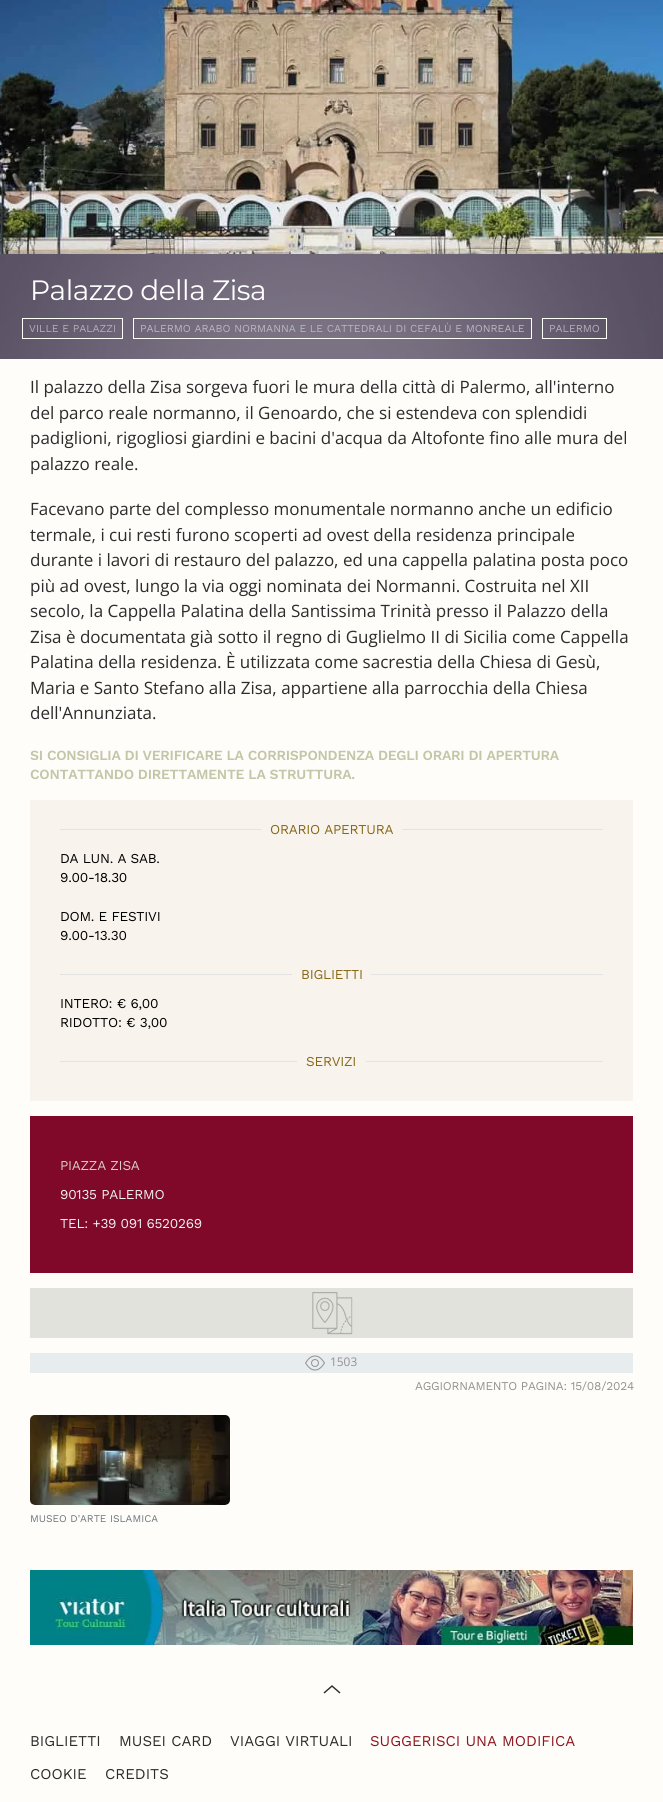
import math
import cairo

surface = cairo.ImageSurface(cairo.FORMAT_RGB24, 663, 1802)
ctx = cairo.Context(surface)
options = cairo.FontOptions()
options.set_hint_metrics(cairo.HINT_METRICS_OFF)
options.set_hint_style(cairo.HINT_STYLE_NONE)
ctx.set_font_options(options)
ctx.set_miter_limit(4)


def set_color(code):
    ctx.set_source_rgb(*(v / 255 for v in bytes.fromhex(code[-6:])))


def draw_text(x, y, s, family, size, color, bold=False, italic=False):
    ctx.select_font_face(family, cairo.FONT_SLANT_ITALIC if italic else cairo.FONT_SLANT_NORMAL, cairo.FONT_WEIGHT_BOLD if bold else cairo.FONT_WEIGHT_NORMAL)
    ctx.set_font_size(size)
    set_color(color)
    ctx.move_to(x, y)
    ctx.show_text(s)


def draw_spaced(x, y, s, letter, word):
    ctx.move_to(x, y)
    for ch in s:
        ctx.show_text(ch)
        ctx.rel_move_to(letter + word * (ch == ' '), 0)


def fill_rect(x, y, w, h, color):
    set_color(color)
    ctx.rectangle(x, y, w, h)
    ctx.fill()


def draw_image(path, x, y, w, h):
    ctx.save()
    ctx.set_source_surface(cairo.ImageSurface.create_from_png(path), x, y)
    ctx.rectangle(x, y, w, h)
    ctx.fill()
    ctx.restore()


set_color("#fffdfa")
ctx.paint()
draw_image("assets/img1.png", 0, 0, 663, 254)
draw_image("assets/img2.png", 0, 254, 663, 105)
ctx.select_font_face("Montserrat")
ctx.set_font_size(28)
set_color("#ffffff")
draw_spaced(30, 300, "Palazzo della Zisa", -0.5, 0)
ctx.rectangle(22.5, 318.5, 100, 20)
set_color("#fffffa")
ctx.set_line_width(1)
ctx.stroke()
draw_text(29, 332, "VILLE E PALAZZI", "Work Sans", 10.65, "#b3afb8")
ctx.rectangle(133.5, 318.5, 398, 20)
set_color("#fffffa")
ctx.stroke()
draw_text(140, 332, "PALERMO ARABO NORMANNA E LE CATTEDRALI DI CEFALÙ E MONREALE", "Work Sans", 10.65, "#bab6bf")
ctx.rectangle(542.5, 318.5, 64, 20)
set_color("#fffffa")
ctx.stroke()
draw_text(549, 332, "PALERMO", "Work Sans", 10.65, "#b3afb8")
draw_text(30, 393, "Il palazzo della Zisa sorgeva fuori le mura della città di Palermo, all'interno", "Open Sans", 17, "#2c2c2c")
draw_text(30, 419, "del parco reale normanno, il Genoardo, che si estendeva con splendidi", "Open Sans", 17, "#2c2c2c")
draw_text(30, 444, "padiglioni, rigogliosi giardini e bacini d'acqua da Altofonte fino alle mura del", "Open Sans", 17, "#2c2c2c")
draw_text(30, 470, "palazzo reale.", "Open Sans", 17, "#2c2c2c")
draw_text(30, 515, "Facevano parte del complesso monumentale normanno anche un edificio", "Open Sans", 17, "#2c2c2c")
draw_text(30, 541, "termale, i cui resti furono scoperti ad ovest della residenza principale", "Open Sans", 17, "#2c2c2c")
draw_text(30, 566, "durante i lavori di restauro del palazzo, ed una cappella palatina posta poco", "Open Sans", 17, "#2c2c2c")
draw_text(30, 592, "più ad ovest, lungo la via oggi nominata dei Normanni. Costruita nel XII", "Open Sans", 17, "#2c2c2c")
draw_text(30, 617, "secolo, la Cappella Palatina della Santissima Trinità presso il Palazzo della", "Open Sans", 17, "#2c2c2c")
draw_text(30, 643, "Zisa è documentata già sotto il regno di Guglielmo II di Sicilia come Cappella", "Open Sans", 17, "#2c2c2c")
draw_text(30, 668, "Palatina della residenza. È utilizzata come sacrestia della Chiesa di Gesù,", "Open Sans", 17, "#2c2c2c")
draw_text(30, 694, "Maria e Santo Stefano alla Zisa, appartiene alla parrocchia della Chiesa", "Open Sans", 17, "#2c2c2c")
draw_text(30, 719, "dell'Annunziata.", "Open Sans", 17, "#2c2c2c")
ctx.select_font_face("Work Sans SemiBold")
ctx.set_font_size(14)
set_color("#c5c5a7")
draw_spaced(30, 760, "SI CONSIGLIA DI VERIFICARE LA CORRISPONDENZA DEGLI ORARI DI APERTURA", -0.25, 0)
draw_spaced(30, 779, "CONTATTANDO DIRETTAMENTE LA STRUTTURA.", -0.25, 0)
fill_rect(30, 800, 603, 301, "#f8f4ed")
fill_rect(60, 829, 201, 1, "#e3e3e3")
ctx.select_font_face("Work Sans")
ctx.set_font_size(13.6)
set_color("#876819")
draw_spaced(270, 834, "ORARIO APERTURA", -0.25, 0)
fill_rect(402, 829, 201, 1, "#e3e3e3")
set_color("#000000")
draw_spaced(60, 863, "DA LUN. A SAB.", -0.25, 0)
draw_spaced(60, 882, "9.00-18.30", -0.25, 0)
draw_spaced(60, 921, "DOM. E FESTIVI", -0.25, 0)
draw_spaced(60, 940, "9.00-13.30", -0.25, 0)
fill_rect(60, 974, 232, 1, "#e3e3e3")
set_color("#876819")
draw_spaced(301, 979, "BIGLIETTI", -0.25, 0)
fill_rect(371, 974, 232, 1, "#e3e3e3")
set_color("#000000")
draw_spaced(60, 1008, "INTERO: € 6,00", -0.25, 0)
draw_spaced(60, 1027, "RIDOTTO: € 3,00", -0.25, 0)
fill_rect(60, 1061, 237, 1, "#e3e3e3")
set_color("#876819")
draw_spaced(306, 1066, "SERVIZI", -0.25, 0)
fill_rect(366, 1061, 237, 1, "#e3e3e3")
fill_rect(30, 1116, 603, 157, "#800829")
set_color("#d6ccc2")
draw_spaced(60, 1170, "PIAZZA ZISA", -0.25, 0)
set_color("#f0f0f0")
draw_spaced(60, 1199, "90135 PALERMO", -0.25, 0)
draw_spaced(60, 1228, "TEL: +39 091 6520269", -0.25, 0)
fill_rect(30, 1288, 603, 50, "#e0e2db")
draw_image("assets/img3.png", 312, 1292, 41, 43)
fill_rect(30, 1353, 603, 20, "#e7ecef")
draw_image("assets/img4.png", 305, 1355, 20, 16)
draw_text(330, 1366, "1503", "Open Sans", 11.9, "#939091")
ctx.select_font_face("Work Sans")
draw_spaced(415, 1390, "AGGIORNAMENTO PAGINA: 15/08/2024", -0.2, 0)
draw_image("assets/img5.png", 30, 1415, 200, 90)
draw_text(30, 1522, "MUSEO D'ARTE ISLAMICA", "Work Sans", 10.25, "#6c757d")
draw_image("assets/img6.png", 30, 1570, 603, 75)
ctx.new_path()
ctx.move_to(324, 1693)
ctx.line_to(332, 1686)
ctx.line_to(340, 1693)
set_color("#2c2c2c")
ctx.set_line_width(1.4)
ctx.stroke()
draw_text(30, 1746, "BIGLIETTI", "Work Sans", 15, "#2c2c2c")
draw_text(119, 1746, "MUSEI CARD", "Work Sans", 15, "#2c2c2c")
draw_text(230, 1746, "VIAGGI VIRTUALI", "Work Sans", 15, "#2c2c2c")
draw_text(370, 1746, "SUGGERISCI UNA MODIFICA", "Work Sans", 15, "#8c161e")
draw_text(30, 1779, "COOKIE", "Work Sans", 15, "#2c2c2c")
draw_text(105, 1779, "CREDITS", "Work Sans", 15, "#2c2c2c")
surface.write_to_png("output.png")
